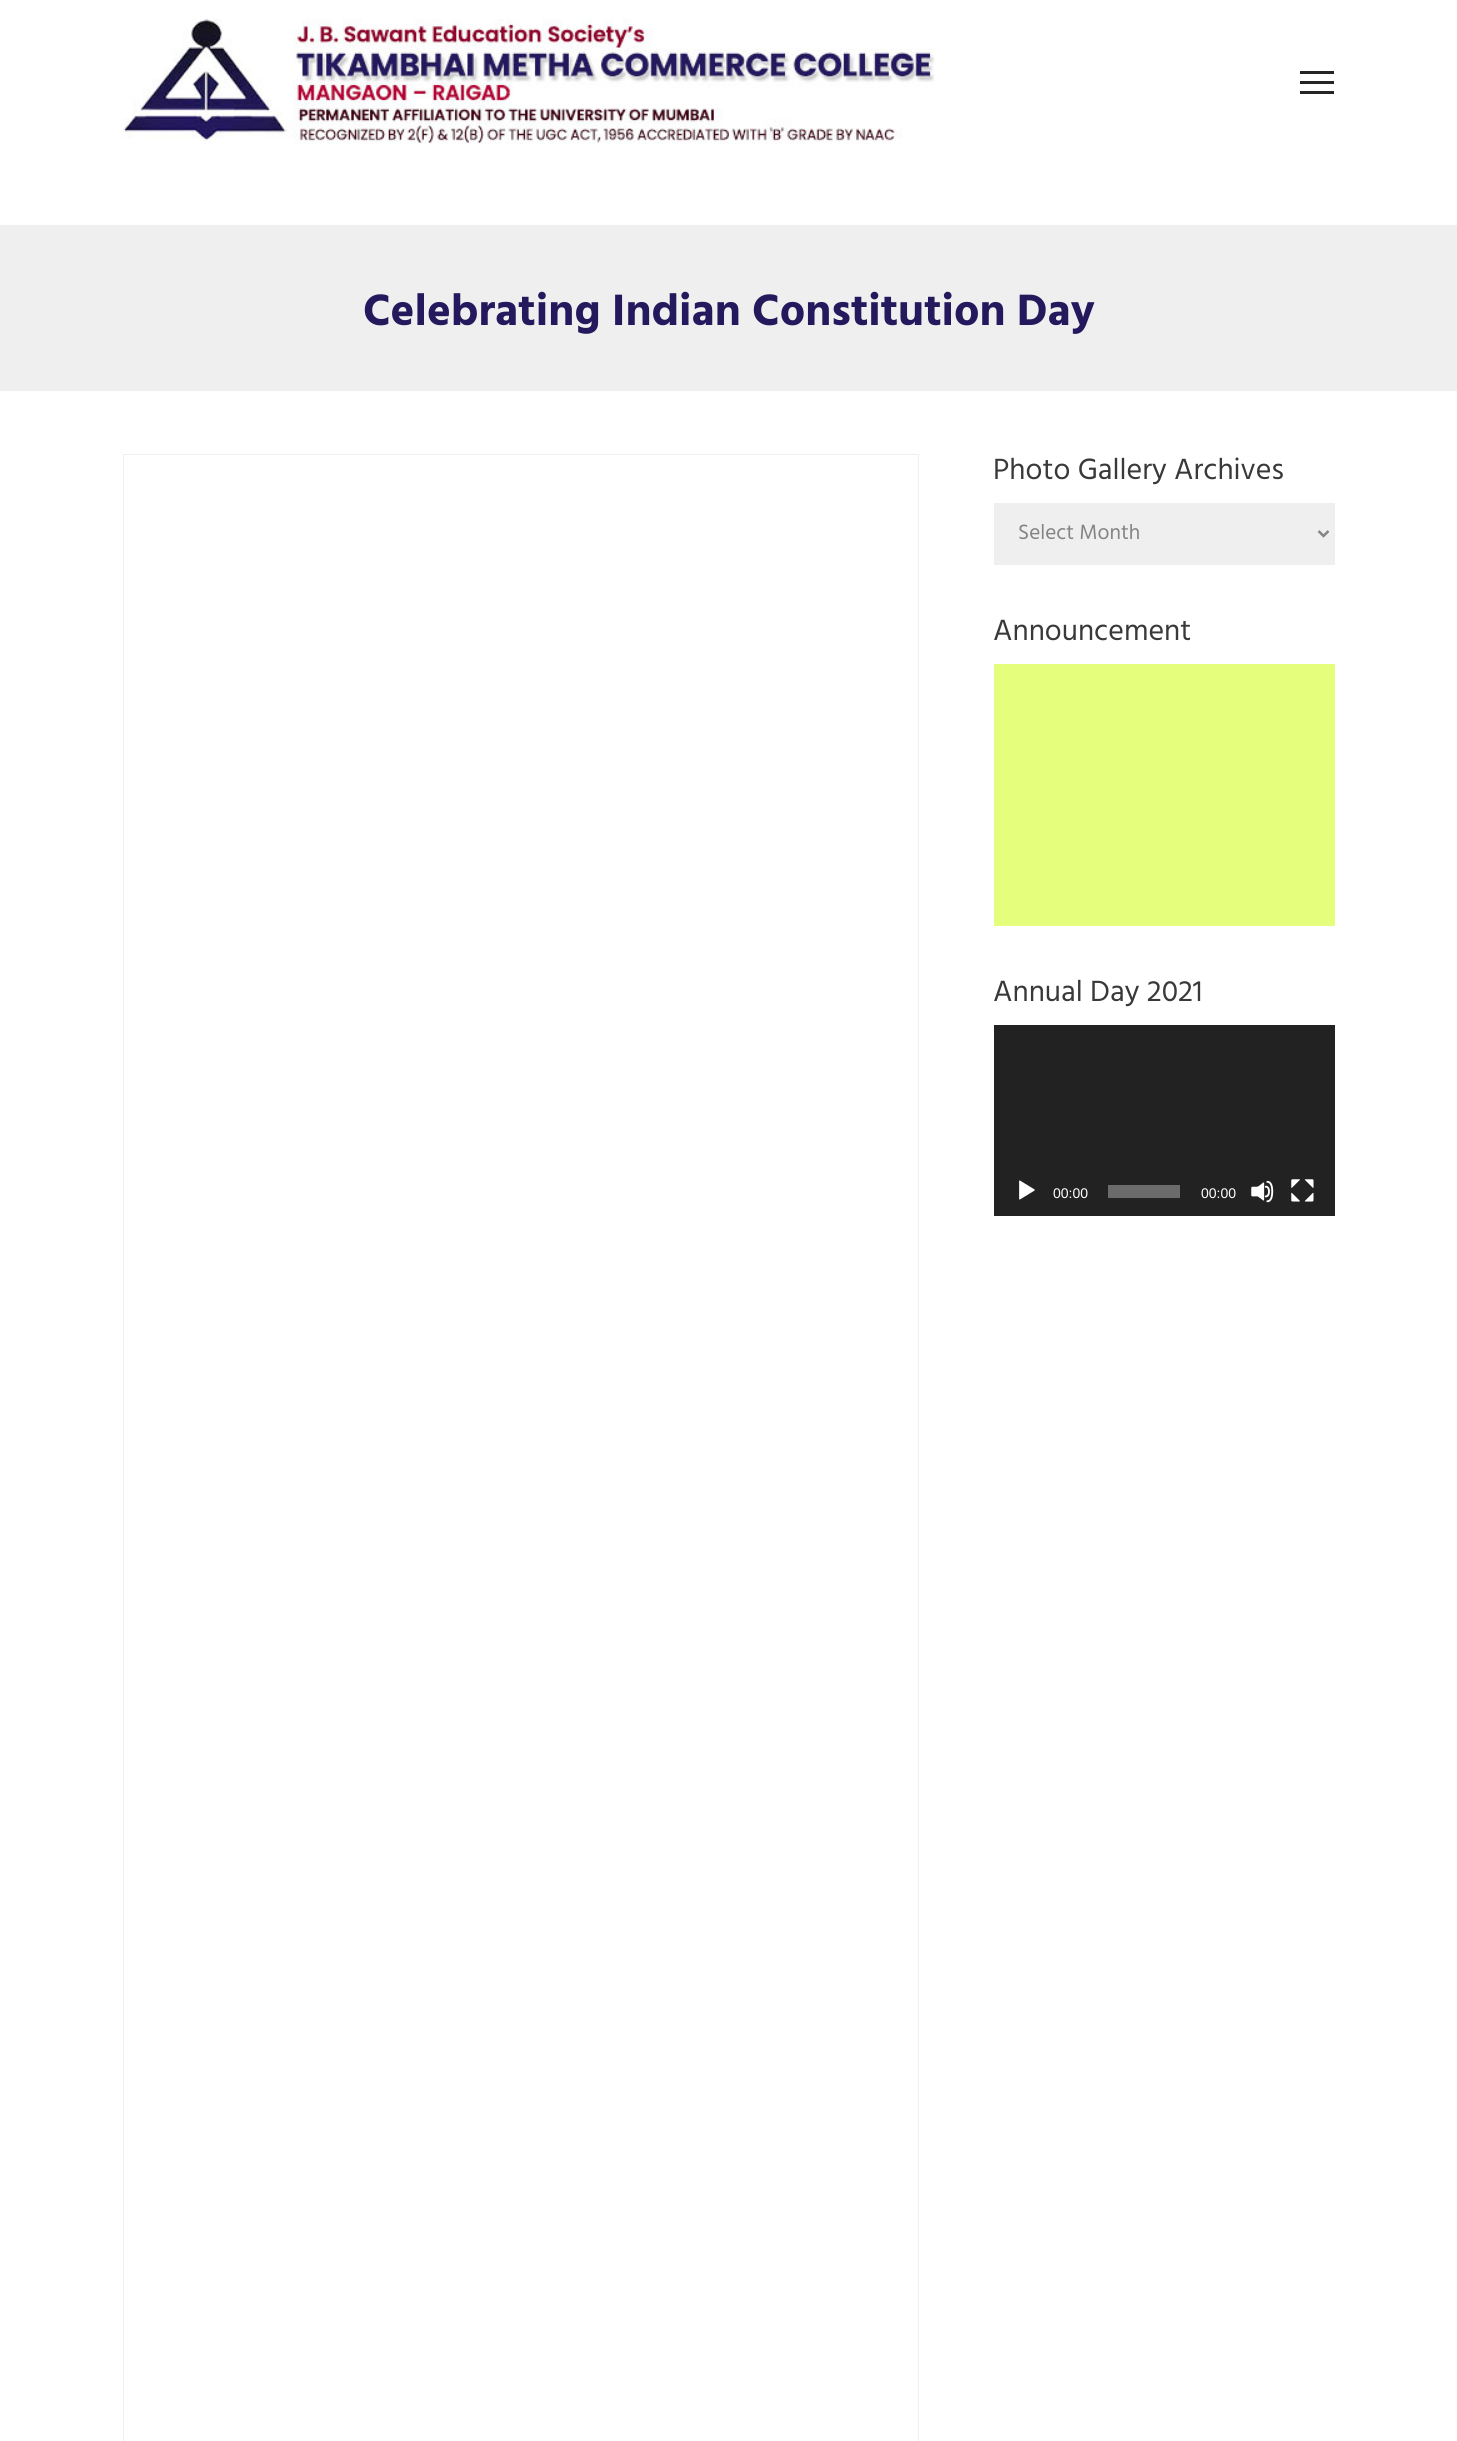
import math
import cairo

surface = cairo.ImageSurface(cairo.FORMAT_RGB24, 1457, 2441)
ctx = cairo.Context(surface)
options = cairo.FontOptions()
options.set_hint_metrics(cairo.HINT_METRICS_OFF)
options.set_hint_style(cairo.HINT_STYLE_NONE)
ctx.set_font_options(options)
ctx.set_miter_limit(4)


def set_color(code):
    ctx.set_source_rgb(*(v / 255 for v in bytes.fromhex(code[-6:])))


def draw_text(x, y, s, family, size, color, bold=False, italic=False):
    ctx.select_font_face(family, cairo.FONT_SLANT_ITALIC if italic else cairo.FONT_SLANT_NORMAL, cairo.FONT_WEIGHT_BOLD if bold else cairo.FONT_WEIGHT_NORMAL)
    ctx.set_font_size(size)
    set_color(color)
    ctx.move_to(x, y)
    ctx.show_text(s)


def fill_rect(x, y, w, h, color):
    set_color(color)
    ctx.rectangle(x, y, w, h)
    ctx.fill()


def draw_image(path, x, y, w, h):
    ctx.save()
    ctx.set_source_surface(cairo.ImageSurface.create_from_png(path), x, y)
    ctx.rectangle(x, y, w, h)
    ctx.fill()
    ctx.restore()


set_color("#ffffff")
ctx.paint()
draw_image("assets/img1.png", 122, 18, 813, 126)
fill_rect(1300, 81, 34, 3, "#252525")
fill_rect(1300, 71, 34, 3, "#252525")
fill_rect(1300, 91, 34, 3, "#252525")
fill_rect(0, 225, 1457, 166, "#efefef")
draw_text(363, 325, "Celebrating Indian Constitution Day", "Hind", 45, "#24195d", bold=True)
ctx.rectangle(123.5, 454.5, 795, 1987)
set_color("#efefef")
ctx.set_line_width(1)
ctx.stroke()
draw_text(993, 479, "Photo Gallery Archives", "Hind", 30, "#393939")
fill_rect(994, 503, 341, 62, "#efefef")
ctx.new_path()
ctx.move_to(1318.5, 531)
ctx.line_to(1323.5, 536)
ctx.line_to(1328.5, 531)
set_color("#848484")
ctx.set_line_width(2.5)
ctx.stroke()
draw_text(1018, 539, "Select Month", "Hind", 21.25, "#848484")
draw_text(993, 640, "Announcement", "Hind", 30, "#393939")
fill_rect(994, 664, 341, 262, "#e5ff7d")
draw_text(993, 1001, "Annual Day 2021", "Hind", 30, "#393939")
fill_rect(994, 1025, 341, 191, "#222222")
draw_image("assets/img2.png", 1019, 1180, 16, 20)
draw_text(1053, 1198, "00:00", "Liberation Sans", 14, "#ffffff")
fill_rect(1108, 1185, 72, 13, "#6b6b6b")
draw_text(1201, 1198, "00:00", "Liberation Sans", 14, "#ffffff")
draw_image("assets/img3.png", 1251, 1180, 23, 23)
draw_image("assets/img4.png", 1291, 1179, 23, 23)
surface.write_to_png("output.png")
